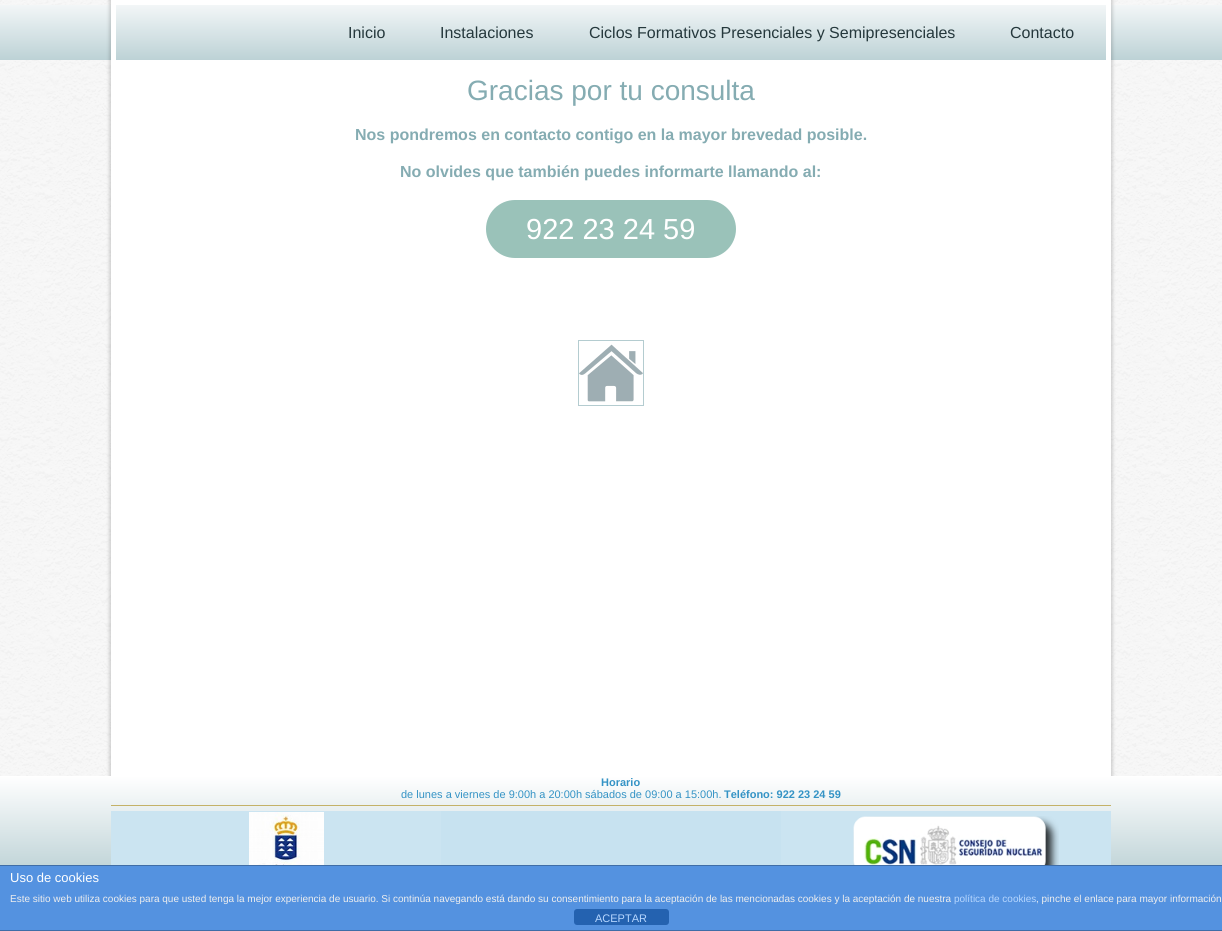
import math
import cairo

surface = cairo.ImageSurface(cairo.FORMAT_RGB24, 1222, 931)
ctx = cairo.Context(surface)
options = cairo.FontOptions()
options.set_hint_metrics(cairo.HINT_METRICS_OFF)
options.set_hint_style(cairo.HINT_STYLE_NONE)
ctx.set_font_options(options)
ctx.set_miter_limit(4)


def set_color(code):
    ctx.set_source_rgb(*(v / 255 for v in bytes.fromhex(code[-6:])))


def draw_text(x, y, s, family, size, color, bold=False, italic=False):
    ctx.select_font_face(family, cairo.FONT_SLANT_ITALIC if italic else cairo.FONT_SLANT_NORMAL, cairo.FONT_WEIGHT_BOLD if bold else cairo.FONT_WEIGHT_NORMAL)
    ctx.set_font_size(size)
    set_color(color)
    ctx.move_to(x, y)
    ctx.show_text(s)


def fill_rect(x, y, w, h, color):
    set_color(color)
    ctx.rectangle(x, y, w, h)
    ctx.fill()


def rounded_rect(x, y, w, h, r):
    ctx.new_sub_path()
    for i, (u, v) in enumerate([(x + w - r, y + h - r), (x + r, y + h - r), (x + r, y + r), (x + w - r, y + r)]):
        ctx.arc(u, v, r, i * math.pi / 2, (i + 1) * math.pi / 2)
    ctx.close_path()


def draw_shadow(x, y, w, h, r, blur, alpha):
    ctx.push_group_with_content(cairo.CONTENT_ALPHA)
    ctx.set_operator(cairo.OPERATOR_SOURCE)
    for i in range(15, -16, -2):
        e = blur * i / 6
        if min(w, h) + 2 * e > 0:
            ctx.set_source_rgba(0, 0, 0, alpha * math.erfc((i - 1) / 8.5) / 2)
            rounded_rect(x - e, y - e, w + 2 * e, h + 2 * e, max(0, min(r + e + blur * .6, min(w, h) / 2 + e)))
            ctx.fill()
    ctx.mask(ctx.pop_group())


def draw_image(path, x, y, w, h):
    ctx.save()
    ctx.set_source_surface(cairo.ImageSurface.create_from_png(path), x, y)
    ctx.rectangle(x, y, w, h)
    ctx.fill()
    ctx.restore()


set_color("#f7f7f7")
ctx.paint()
draw_image("assets/img1.png", 0, 0, 1222, 776)
gradient = cairo.LinearGradient(611, 5, 611, 60)
gradient.add_color_stop_rgba(0, 0.949, 0.965, 0.969, 1)
gradient.add_color_stop_rgba(1, 0.741, 0.824, 0.839, 1)
ctx.set_source(gradient)
ctx.rectangle(0, 5, 1222, 55)
ctx.fill()
set_color("#000000")
draw_shadow(109, -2, 1004, 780, 0, 1.5, 0.15)
fill_rect(111, 0, 1000, 776, "#ffffff")
gradient = cairo.LinearGradient(611, 5, 611, 60)
gradient.add_color_stop_rgba(0, 0.949, 0.965, 0.969, 1)
gradient.add_color_stop_rgba(1, 0.741, 0.824, 0.839, 1)
ctx.set_source(gradient)
ctx.rectangle(116, 5, 990, 55)
ctx.fill()
draw_text(348, 38, "Inicio", "Liberation Sans", 16, "#25383c")
draw_text(440, 38, "Instalaciones", "Liberation Sans", 16, "#25383c")
draw_text(589, 38, "Ciclos Formativos Presenciales y Semipresenciales", "Liberation Sans", 16, "#25383c")
draw_text(1010, 38, "Contacto", "Liberation Sans", 16, "#25383c")
draw_text(467, 100, "Gracias por tu consulta", "Liberation Sans", 28, "#85acb2")
draw_text(355, 140, "Nos pondremos en contacto contigo en la mayor brevedad posible.", "Liberation Sans", 16, "#85acb2", bold=True)
draw_text(400, 177, "No olvides que también puedes informarte llamando al:", "Liberation Sans", 16, "#85acb2", bold=True)
set_color("#9ac2b9")
rounded_rect(486, 200, 250, 58, 29)
ctx.fill()
draw_text(526, 239, "922 23 24 59", "Liberation Sans", 29, "#ffffff")
ctx.rectangle(578.5, 340.5, 65, 65)
set_color("#b4ccd0")
ctx.set_line_width(1)
ctx.stroke()
draw_image("assets/img2.png", 579, 344, 64, 58)
gradient = cairo.LinearGradient(611, 776, 611, 931)
gradient.add_color_stop_rgba(0, 1, 1, 1, 1)
gradient.add_color_stop_rgba(1, 0.592, 0.722, 0.745, 1)
ctx.set_source(gradient)
ctx.rectangle(0, 776, 1222, 89)
ctx.fill()
draw_text(601, 786, "Horario", "Liberation Sans", 11, "#3493c5", bold=True)
draw_text(401, 798, "de lunes a viernes de 9:00h a 20:00h sábados de 09:00 a 15:00h.", "Liberation Sans", 11, "#3493c5")
draw_text(724, 798, "Teléfono: 922 23 24 59", "Liberation Sans", 11, "#3493c5", bold=True)
fill_rect(111, 805, 1000, 1, "#c4b268")
fill_rect(111, 811, 330, 54, "#cbe4f1")
draw_image("assets/img3.png", 249, 812, 75, 53)
fill_rect(441, 811, 340, 54, "#c7e2f0")
fill_rect(781, 811, 330, 54, "#cbe4f1")
draw_image("assets/img4.png", 853, 816, 206, 49)
fill_rect(0, 866, 1222, 64, "#5492e0")
fill_rect(0, 865, 1222, 1, "#3f6da7")
fill_rect(0, 930, 1222, 1, "#3f6da7")
draw_text(10, 882, "Uso de cookies", "Liberation Sans", 13, "#ffffff")
draw_text(10, 902, "Este sitio web utiliza cookies para que usted tenga la mejor experiencia de usuario. Si continúa navegando está dando su consentimiento para la aceptación de las mencionadas cookies y la aceptación de nuestra", "Liberation Sans", 10, "#eeeeee")
draw_text(954, 902, "política de cookies", "Liberation Sans", 10, "#b7d7ff")
draw_text(1036, 902, ", pinche el enlace para mayor información", "Liberation Sans", 10, "#eeeeee")
set_color("#2462b0")
rounded_rect(574, 909, 95, 16, 3)
ctx.fill()
draw_text(595, 922, "ACEPTAR", "Liberation Sans", 11, "#b7d7ff")
surface.write_to_png("output.png")
